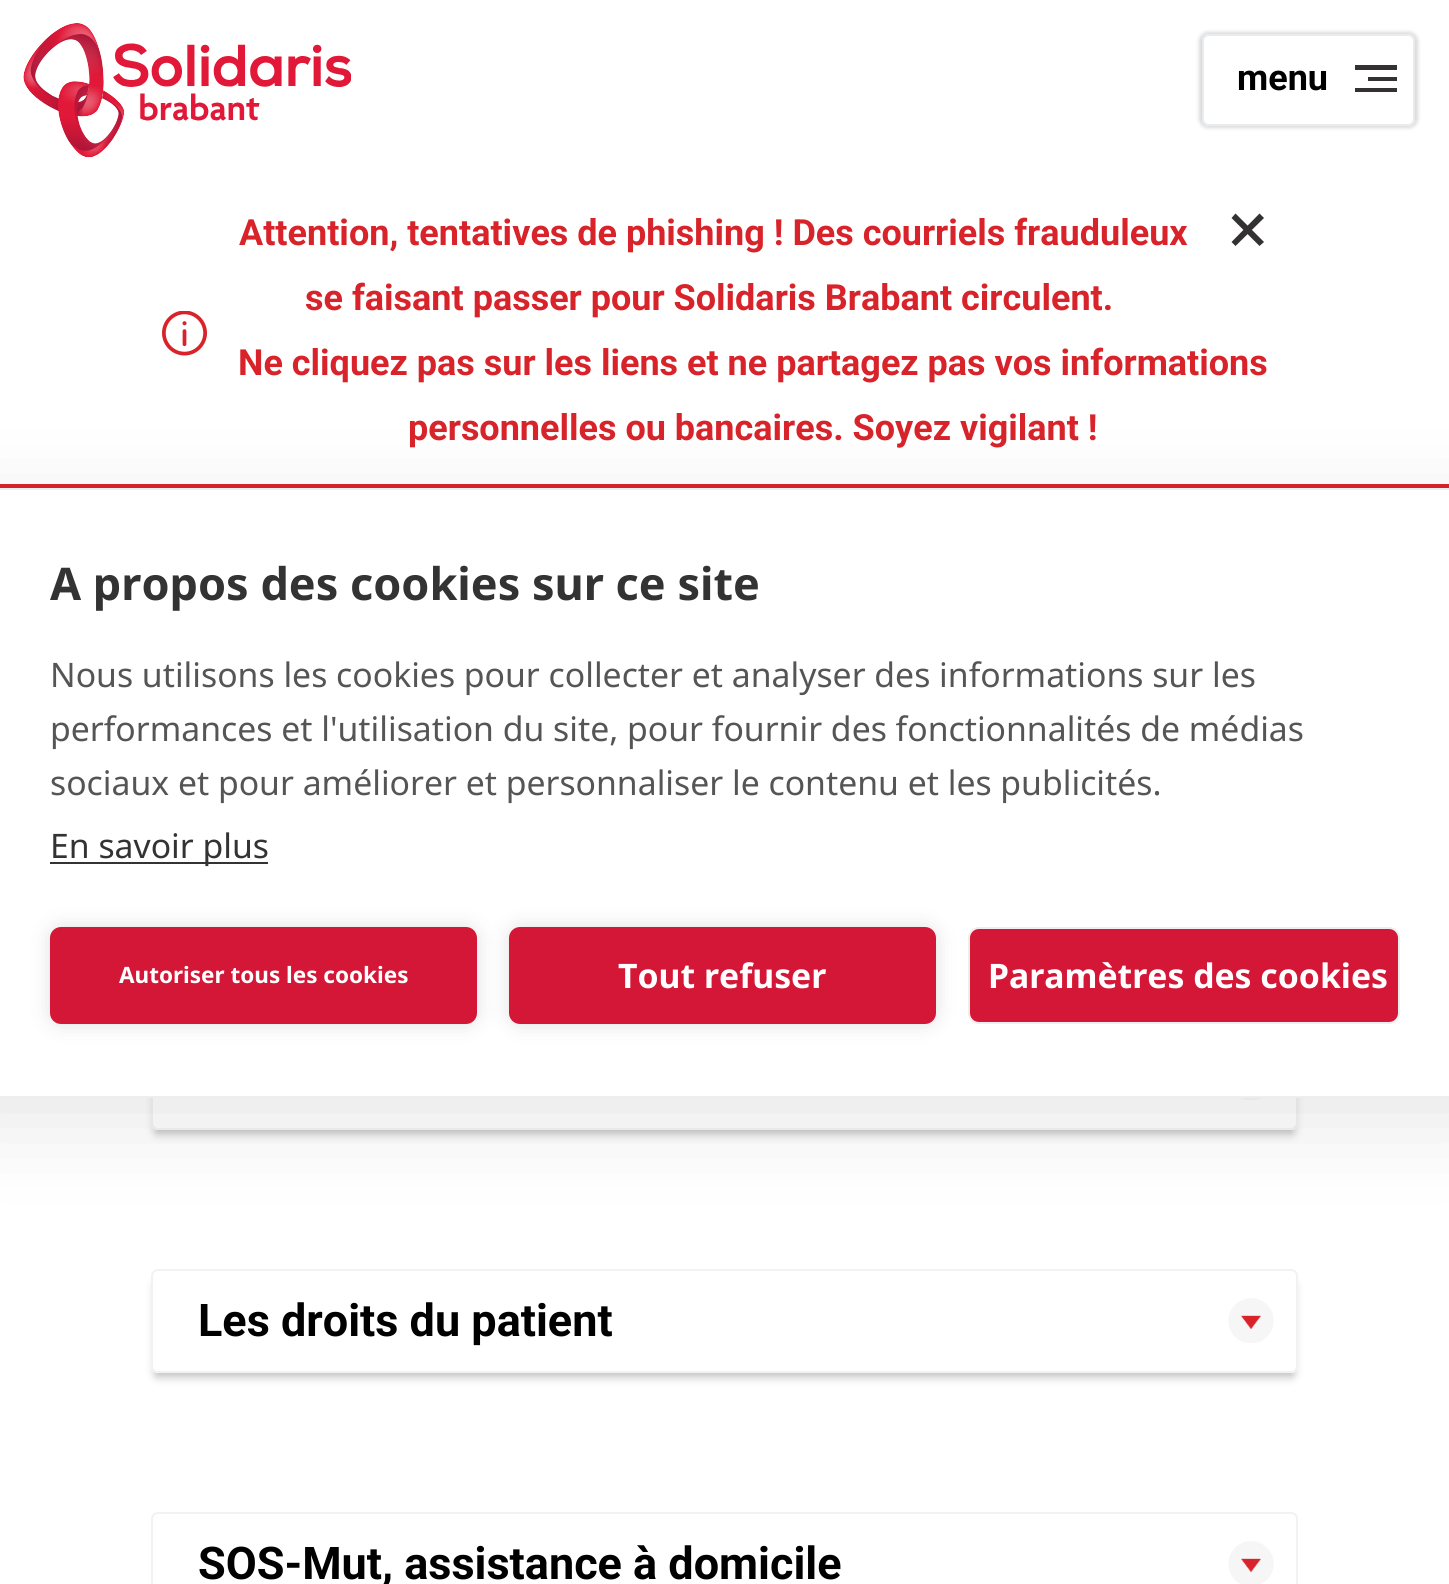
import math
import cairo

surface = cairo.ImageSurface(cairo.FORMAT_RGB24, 1449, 1584)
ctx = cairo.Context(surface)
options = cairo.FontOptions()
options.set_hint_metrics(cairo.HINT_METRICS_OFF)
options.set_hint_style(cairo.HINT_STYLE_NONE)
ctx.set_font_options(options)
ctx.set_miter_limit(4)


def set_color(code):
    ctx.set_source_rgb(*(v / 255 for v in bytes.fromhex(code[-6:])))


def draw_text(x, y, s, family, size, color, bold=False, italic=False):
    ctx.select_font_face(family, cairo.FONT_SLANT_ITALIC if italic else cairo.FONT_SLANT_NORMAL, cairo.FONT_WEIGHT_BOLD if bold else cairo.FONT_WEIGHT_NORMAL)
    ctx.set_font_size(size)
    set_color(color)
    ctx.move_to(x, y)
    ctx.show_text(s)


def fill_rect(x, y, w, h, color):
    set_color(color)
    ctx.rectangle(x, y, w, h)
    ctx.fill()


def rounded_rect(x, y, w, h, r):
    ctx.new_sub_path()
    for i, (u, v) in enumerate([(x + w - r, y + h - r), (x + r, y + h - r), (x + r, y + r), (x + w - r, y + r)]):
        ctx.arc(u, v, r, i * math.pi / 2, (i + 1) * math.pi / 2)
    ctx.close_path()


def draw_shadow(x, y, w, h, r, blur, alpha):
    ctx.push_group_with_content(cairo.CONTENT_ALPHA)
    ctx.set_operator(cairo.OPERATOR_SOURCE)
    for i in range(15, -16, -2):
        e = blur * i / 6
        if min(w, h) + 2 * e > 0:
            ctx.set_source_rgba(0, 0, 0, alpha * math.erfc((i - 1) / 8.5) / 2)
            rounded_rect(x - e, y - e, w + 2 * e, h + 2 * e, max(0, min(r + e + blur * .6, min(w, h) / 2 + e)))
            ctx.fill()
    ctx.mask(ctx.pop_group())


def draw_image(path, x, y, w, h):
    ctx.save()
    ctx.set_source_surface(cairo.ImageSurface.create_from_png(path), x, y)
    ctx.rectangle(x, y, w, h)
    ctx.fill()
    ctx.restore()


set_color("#ffffff")
ctx.paint()
draw_image("assets/img1.png", 23, 23, 328, 135)
set_color("#000000")
draw_shadow(1199, 32, 219, 96, 9, 2, 0.15)
set_color("#ffffff")
rounded_rect(1202, 34, 213, 92, 7)
ctx.fill()
fill_rect(1355, 65, 42, 5, "#333132")
fill_rect(1355, 88, 42, 4, "#333132")
fill_rect(1368, 77, 29, 4, "#333132")
rounded_rect(1203, 35, 211, 90, 6)
set_color("#e9ecef")
ctx.stroke()
draw_text(1237, 90, "menu", "Roboto", 36, "#000000", bold=True)
fill_rect(0, 484, 1449, 4, "#d8232a")
draw_image("assets/img2.png", 162, 311, 45, 45)
set_color("#333132")
ctx.set_fill_rule(cairo.FILL_RULE_EVEN_ODD)
ctx.new_path()
ctx.move_to(1235.5, 213.5)
ctx.line_to(1264, 242)
ctx.line_to(1259.5, 246)
ctx.line_to(1231.5, 218)
ctx.close_path()
ctx.fill()
ctx.new_path()
ctx.move_to(1259.5, 213.5)
ctx.line_to(1231.5, 242)
ctx.line_to(1235.5, 246)
ctx.line_to(1264, 218)
ctx.close_path()
ctx.fill()
draw_text(239, 245, "Attention, tentatives de phishing ! Des courriels frauduleux", "Roboto", 36, "#d8232a", bold=True)
draw_text(305, 310, "se faisant passer pour Solidaris Brabant circulent.", "Roboto", 36, "#d8232a", bold=True)
draw_text(238, 375, "Ne cliquez pas sur les liens et ne partagez pas vos informations", "Roboto", 36, "#d8232a", bold=True)
draw_text(408, 440, "personnelles ou bancaires. Soyez vigilant !", "Roboto", 36, "#d8232a", bold=True)
set_color("#000000")
draw_shadow(155, 1040, 1139, 94, 2, 4.5, 0.25)
set_color("#ffffff")
rounded_rect(151, 1026, 1147, 104, 7)
ctx.fill()
draw_image("assets/img3.png", 1241, 1098, 20, 2)
rounded_rect(152, 1027, 1145, 102, 6)
set_color("#f2f2f2")
ctx.stroke()
set_color("#000000")
draw_shadow(155, 1283, 1139, 94, 2, 4.5, 0.25)
set_color("#ffffff")
rounded_rect(151, 1269, 1147, 104, 7)
ctx.fill()
draw_image("assets/img4.png", 1228, 1298, 46, 45)
rounded_rect(152, 1270, 1145, 102, 6)
set_color("#f2f2f2")
ctx.stroke()
draw_text(198, 1336, "Les droits du patient", "Roboto", 45, "#000000", bold=True)
draw_image("assets/img5.png", 1228, 1541, 46, 43)
rounded_rect(152, 1513, 1145, 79, 6)
set_color("#f2f2f2")
ctx.stroke()
draw_text(198, 1579, "SOS-Mut, assistance à domicile", "Roboto", 45, "#000000", bold=True)
set_color("#000000")
draw_shadow(-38, 511, 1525, 610, 18, 45, 0.1)
set_color("#ffffff")
ctx.rectangle(-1, 489, 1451, 608)
ctx.fill_preserve()
set_color("#eeeeee")
ctx.stroke()
draw_text(50, 600, "A propos des cookies sur ce site", "Noto Sans", 45, "#333333", bold=True)
draw_text(50, 687, "Nous utilisons les cookies pour collecter et analyser des informations sur les", "Noto Sans", 33.75, "#555555")
draw_text(50, 741, "performances et l'utilisation du site, pour fournir des fonctionnalités de médias", "Noto Sans", 33.75, "#555555")
draw_text(50, 795, "sociaux et pour améliorer et personnaliser le contenu et les publicités.", "Noto Sans", 33.75, "#555555")
fill_rect(50, 862, 218, 2, "#333333")
draw_text(50, 858, "En savoir plus", "Noto Sans", 33.75, "#333333")
set_color("#000000")
draw_shadow(50, 927, 427, 97, 11, 11, 0.12)
set_color("#d41737")
rounded_rect(50, 927, 427, 97, 11)
ctx.fill()
draw_text(119, 983, "Autoriser tous les cookies", "Noto Sans", 22.5, "#ffffff", bold=True)
set_color("#000000")
draw_shadow(509, 927, 427, 97, 11, 11, 0.12)
set_color("#d41737")
rounded_rect(509, 927, 427, 97, 11)
ctx.fill()
draw_text(618, 988, "Tout refuser", "Noto Sans", 33.75, "#ffffff", bold=True)
set_color("#d41737")
rounded_rect(969, 928, 430, 95, 10)
ctx.fill_preserve()
set_color("#eeeeee")
ctx.stroke()
draw_text(988, 988, "Paramètres des cookies", "Noto Sans", 33.75, "#ffffff", bold=True)
surface.write_to_png("output.png")
